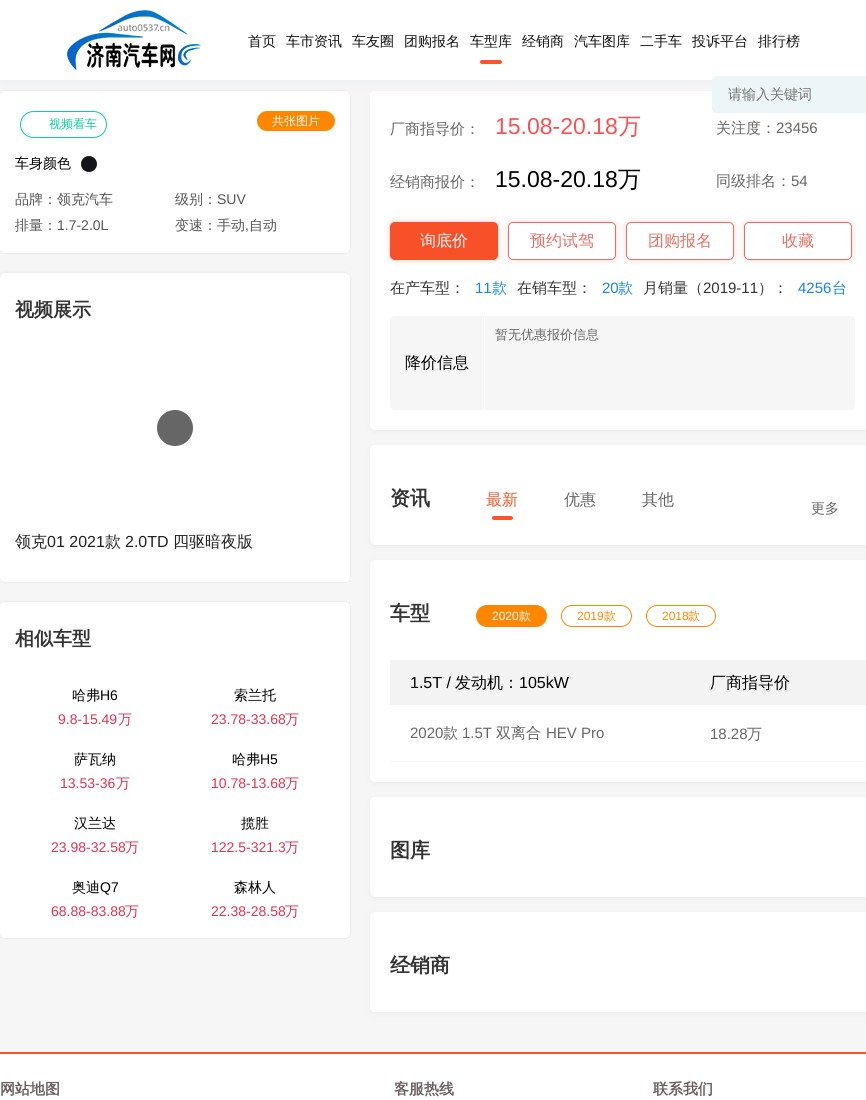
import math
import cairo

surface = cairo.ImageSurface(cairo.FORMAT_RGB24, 866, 1100)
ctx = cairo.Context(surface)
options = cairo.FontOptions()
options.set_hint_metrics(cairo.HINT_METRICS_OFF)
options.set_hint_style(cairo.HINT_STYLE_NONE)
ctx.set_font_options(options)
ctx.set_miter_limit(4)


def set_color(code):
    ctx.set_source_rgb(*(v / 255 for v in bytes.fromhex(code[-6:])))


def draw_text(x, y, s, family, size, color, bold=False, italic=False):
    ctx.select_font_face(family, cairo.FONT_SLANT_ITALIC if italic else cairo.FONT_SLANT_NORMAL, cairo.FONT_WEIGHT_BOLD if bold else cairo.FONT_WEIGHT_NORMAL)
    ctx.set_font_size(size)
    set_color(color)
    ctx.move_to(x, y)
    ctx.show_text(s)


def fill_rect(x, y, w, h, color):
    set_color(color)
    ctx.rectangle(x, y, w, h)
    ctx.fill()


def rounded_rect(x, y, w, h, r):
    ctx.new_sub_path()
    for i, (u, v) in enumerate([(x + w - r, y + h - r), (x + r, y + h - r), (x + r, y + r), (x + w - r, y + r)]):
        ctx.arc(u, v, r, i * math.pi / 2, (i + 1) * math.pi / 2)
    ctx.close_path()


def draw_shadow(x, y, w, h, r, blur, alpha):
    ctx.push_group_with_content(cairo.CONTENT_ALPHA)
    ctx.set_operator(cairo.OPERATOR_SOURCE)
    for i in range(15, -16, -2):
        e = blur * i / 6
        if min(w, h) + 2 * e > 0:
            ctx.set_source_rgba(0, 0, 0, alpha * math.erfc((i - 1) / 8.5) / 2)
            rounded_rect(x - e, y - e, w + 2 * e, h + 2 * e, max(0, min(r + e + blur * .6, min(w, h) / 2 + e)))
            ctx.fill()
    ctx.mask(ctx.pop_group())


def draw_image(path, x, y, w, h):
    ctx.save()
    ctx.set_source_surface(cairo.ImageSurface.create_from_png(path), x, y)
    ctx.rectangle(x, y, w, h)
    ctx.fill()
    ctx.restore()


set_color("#f6f6f6")
ctx.paint()
set_color("#000000")
draw_shadow(0, 91, 350, 162, 5, 1, 0.1)
set_color("#ffffff")
rounded_rect(0, 91, 350, 162, 5)
ctx.fill()
set_color("#ececec")
draw_shadow(370, 93, 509, 339, 5, 2.5, 1)
set_color("#ffffff")
rounded_rect(370, 91, 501, 339, 5)
ctx.fill()
set_color("#e0e3ea")
draw_shadow(0, 2, 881, 80, 0, 5, 0.5)
fill_rect(0, 0, 866, 80, "#ffffff")
draw_image("assets/img1.png", 67, 10, 134, 60)
draw_text(248, 46, "首页", "WenQuanYi Zen Hei Medium", 14, "#111111")
draw_text(286, 46, "车市资讯", "WenQuanYi Zen Hei Medium", 14, "#111111")
draw_text(352, 46, "车友圈", "WenQuanYi Zen Hei Medium", 14, "#111111")
draw_text(404, 46, "团购报名", "WenQuanYi Zen Hei Medium", 14, "#111111")
draw_text(470, 46, "车型库", "WenQuanYi Zen Hei Medium", 14, "#111111")
set_color("#fc5427")
rounded_rect(480, 60, 22, 4, 2)
ctx.fill()
draw_text(522, 46, "经销商", "WenQuanYi Zen Hei Medium", 14, "#111111")
draw_text(574, 46, "汽车图库", "WenQuanYi Zen Hei Medium", 14, "#111111")
draw_text(640, 46, "二手车", "WenQuanYi Zen Hei Medium", 14, "#111111")
draw_text(692, 46, "投诉平台", "WenQuanYi Zen Hei Medium", 14, "#111111")
draw_text(758, 46, "排行榜", "WenQuanYi Zen Hei Medium", 14, "#111111")
set_color("#ecf6f8")
rounded_rect(712.5, 76.5, 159, 36, 4.5)
ctx.fill_preserve()
ctx.set_line_width(1)
ctx.stroke()
draw_text(728, 99, "请输入关键词", "WenQuanYi Zen Hei Medium", 14, "#757575")
rounded_rect(20.5, 111.5, 86, 26, 13)
set_color("#09cfa0")
ctx.stroke()
draw_text(49, 128, "视频看车", "WenQuanYi Zen Hei Medium", 12, "#09cfa0")
set_color("#ff8700")
rounded_rect(257, 111, 78, 20, 10)
ctx.fill()
draw_text(272, 125, "共张图片", "WenQuanYi Zen Hei Medium", 12, "#ffffff")
draw_text(15, 168, "车身颜色", "WenQuanYi Zen Hei Medium", 14, "#000000")
set_color("#141519")
ctx.new_path()
ctx.arc(89, 164, 8, 0, 2 * math.pi)
ctx.fill()
draw_text(15, 204, "品牌：领克汽车", "WenQuanYi Zen Hei Medium", 14, "#555555")
draw_text(175, 204, "级别：", "WenQuanYi Zen Hei Medium", 14, "#555555")
draw_text(217, 204, "SUV", "Liberation Sans", 14, "#555555")
draw_text(15, 230, "排量：", "WenQuanYi Zen Hei Medium", 14, "#555555")
draw_text(57, 230, "1.7-2.0L", "Liberation Sans", 14, "#555555")
draw_text(175, 230, "变速：手动", "WenQuanYi Zen Hei Medium", 14, "#555555")
draw_text(245, 230, ",", "Liberation Sans", 14, "#555555")
draw_text(249, 230, "自动", "WenQuanYi Zen Hei Medium", 14, "#555555")
set_color("#000000")
draw_shadow(0, 273, 350, 309, 5, 1, 0.1)
set_color("#ffffff")
rounded_rect(0, 273, 350, 309, 5)
ctx.fill()
draw_text(15, 316, "视频展示", "WenQuanYi Zen Hei", 19, "#333333", bold=True)
set_color("#666666")
ctx.new_path()
ctx.arc(175, 428, 18, 0, 2 * math.pi)
ctx.fill()
draw_text(15, 547, "领克", "WenQuanYi Zen Hei Medium", 16, "#222222")
draw_text(47, 547, "01 2021", "Liberation Sans", 16, "#222222")
draw_text(105, 547, "款", "WenQuanYi Zen Hei Medium", 16, "#222222")
draw_text(125, 547, "2.0TD", "Liberation Sans", 16, "#222222")
draw_text(173, 547, "四驱暗夜版", "WenQuanYi Zen Hei Medium", 16, "#222222")
set_color("#000000")
draw_shadow(0, 602, 350, 336, 5, 1, 0.1)
set_color("#ffffff")
rounded_rect(0, 602, 350, 336, 5)
ctx.fill()
draw_text(15, 645, "相似车型", "WenQuanYi Zen Hei", 19, "#333333", bold=True)
draw_text(72, 700, "哈弗", "WenQuanYi Zen Hei Medium", 14, "#000000")
draw_text(100, 700, "H6", "Liberation Sans", 14, "#000000")
draw_text(58, 724, "9.8-15.49", "Liberation Sans", 14, "#e43250")
draw_text(118, 724, "万", "WenQuanYi Zen Hei Medium", 14, "#e43250")
draw_text(234, 700, "索兰托", "WenQuanYi Zen Hei Medium", 14, "#000000")
draw_text(211, 724, "23.78-33.68", "Liberation Sans", 14, "#e43250")
draw_text(285, 724, "万", "WenQuanYi Zen Hei Medium", 14, "#e43250")
draw_text(74, 764, "萨瓦纳", "WenQuanYi Zen Hei Medium", 14, "#000000")
draw_text(60, 788, "13.53-36", "Liberation Sans", 14, "#e43250")
draw_text(116, 788, "万", "WenQuanYi Zen Hei Medium", 14, "#e43250")
draw_text(232, 764, "哈弗", "WenQuanYi Zen Hei Medium", 14, "#000000")
draw_text(260, 764, "H5", "Liberation Sans", 14, "#000000")
draw_text(211, 788, "10.78-13.68", "Liberation Sans", 14, "#e43250")
draw_text(285, 788, "万", "WenQuanYi Zen Hei Medium", 14, "#e43250")
draw_text(74, 828, "汉兰达", "WenQuanYi Zen Hei Medium", 14, "#000000")
draw_text(51, 852, "23.98-32.58", "Liberation Sans", 14, "#e43250")
draw_text(125, 852, "万", "WenQuanYi Zen Hei Medium", 14, "#e43250")
draw_text(241, 828, "揽胜", "WenQuanYi Zen Hei Medium", 14, "#000000")
draw_text(211, 852, "122.5-321.3", "Liberation Sans", 14, "#e43250")
draw_text(285, 852, "万", "WenQuanYi Zen Hei Medium", 14, "#e43250")
draw_text(72, 892, "奥迪", "WenQuanYi Zen Hei Medium", 14, "#000000")
draw_text(100, 892, "Q7", "Liberation Sans", 14, "#000000")
draw_text(51, 916, "68.88-83.88", "Liberation Sans", 14, "#e43250")
draw_text(125, 916, "万", "WenQuanYi Zen Hei Medium", 14, "#e43250")
draw_text(234, 892, "森林人", "WenQuanYi Zen Hei Medium", 14, "#000000")
draw_text(211, 916, "22.38-28.58", "Liberation Sans", 14, "#e43250")
draw_text(285, 916, "万", "WenQuanYi Zen Hei Medium", 14, "#e43250")
draw_text(390, 134, "厂商指导价：", "WenQuanYi Zen Hei Medium", 15, "#666666")
draw_text(495, 134, "15.08-20.18", "Liberation Sans", 23, "#ff4f53")
draw_text(618, 134, "万", "WenQuanYi Zen Hei Medium", 23, "#ff4f53")
draw_text(716, 133, "关注度：", "WenQuanYi Zen Hei Medium", 15, "#666666")
draw_text(776, 133, "23456", "Liberation Sans", 15, "#666666")
draw_text(390, 187, "经销商报价：", "WenQuanYi Zen Hei Medium", 15, "#666666")
draw_text(495, 187, "15.08-20.18", "Liberation Sans", 23, "#000000")
draw_text(618, 187, "万", "WenQuanYi Zen Hei Medium", 23, "#000000")
draw_text(716, 186, "同级排名：", "WenQuanYi Zen Hei Medium", 15, "#666666")
draw_text(791, 186, "54", "Liberation Sans", 15, "#666666")
set_color("#f85029")
draw_shadow(390, 222, 108, 38, 5, 3, 0.3)
set_color("#f85029")
rounded_rect(390.5, 222.5, 107, 37, 4.5)
ctx.fill_preserve()
ctx.stroke()
draw_text(420, 246, "询底价", "WenQuanYi Zen Hei Medium", 16, "#ffffff")
ctx.save()
ctx.set_fill_rule(cairo.FILL_RULE_EVEN_ODD)
ctx.new_path()
ctx.move_to(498, 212)
ctx.line_to(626, 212)
ctx.line_to(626, 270)
ctx.line_to(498, 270)
ctx.close_path()
ctx.move_to(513, 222)
ctx.line_to(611, 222)
ctx.curve_to(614, 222, 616, 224, 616, 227)
ctx.line_to(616, 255)
ctx.curve_to(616, 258, 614, 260, 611, 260)
ctx.line_to(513, 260)
ctx.curve_to(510, 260, 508, 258, 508, 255)
ctx.line_to(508, 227)
ctx.curve_to(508, 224, 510, 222, 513, 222)
ctx.close_path()
ctx.clip()
set_color("#e76e61")
draw_shadow(508, 222, 108, 38, 5, 3, 0.3)
ctx.restore()
rounded_rect(508.5, 222.5, 107, 37, 4.5)
set_color("#e76e61")
ctx.stroke()
draw_text(530, 246, "预约试驾", "WenQuanYi Zen Hei Medium", 16, "#e76e61")
ctx.save()
ctx.set_fill_rule(cairo.FILL_RULE_EVEN_ODD)
ctx.new_path()
ctx.move_to(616, 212)
ctx.line_to(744, 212)
ctx.line_to(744, 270)
ctx.line_to(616, 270)
ctx.close_path()
ctx.move_to(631, 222)
ctx.line_to(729, 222)
ctx.curve_to(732, 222, 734, 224, 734, 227)
ctx.line_to(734, 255)
ctx.curve_to(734, 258, 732, 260, 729, 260)
ctx.line_to(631, 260)
ctx.curve_to(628, 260, 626, 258, 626, 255)
ctx.line_to(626, 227)
ctx.curve_to(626, 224, 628, 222, 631, 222)
ctx.close_path()
ctx.clip()
set_color("#e76e61")
draw_shadow(626, 222, 108, 38, 5, 3, 0.3)
ctx.restore()
rounded_rect(626.5, 222.5, 107, 37, 4.5)
ctx.stroke()
draw_text(648, 246, "团购报名", "WenQuanYi Zen Hei Medium", 16, "#e76e61")
ctx.save()
ctx.set_fill_rule(cairo.FILL_RULE_EVEN_ODD)
ctx.new_path()
ctx.move_to(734, 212)
ctx.line_to(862, 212)
ctx.line_to(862, 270)
ctx.line_to(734, 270)
ctx.close_path()
ctx.move_to(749, 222)
ctx.line_to(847, 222)
ctx.curve_to(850, 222, 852, 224, 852, 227)
ctx.line_to(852, 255)
ctx.curve_to(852, 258, 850, 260, 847, 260)
ctx.line_to(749, 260)
ctx.curve_to(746, 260, 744, 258, 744, 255)
ctx.line_to(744, 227)
ctx.curve_to(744, 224, 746, 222, 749, 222)
ctx.close_path()
ctx.clip()
set_color("#e76e61")
draw_shadow(744, 222, 108, 38, 5, 3, 0.3)
ctx.restore()
rounded_rect(744.5, 222.5, 107, 37, 4.5)
ctx.stroke()
draw_text(782, 246, "收藏", "WenQuanYi Zen Hei Medium", 16, "#e76e61")
draw_text(390, 293, "在产车型：", "WenQuanYi Zen Hei Medium", 15, "#333333")
draw_text(475, 293, "11", "Liberation Sans", 15, "#1786e5")
draw_text(492, 293, "款", "WenQuanYi Zen Hei Medium", 15, "#1786e5")
draw_text(517, 293, "在销车型：", "WenQuanYi Zen Hei Medium", 15, "#333333")
draw_text(602, 293, "20", "Liberation Sans", 15, "#1786e5")
draw_text(618, 293, "款", "WenQuanYi Zen Hei Medium", 15, "#1786e5")
draw_text(643, 293, "月销量（", "WenQuanYi Zen Hei Medium", 15, "#333333")
draw_text(703, 293, "2019-11", "Liberation Sans", 15, "#333333")
draw_text(758, 293, "）：", "WenQuanYi Zen Hei Medium", 15, "#333333")
draw_text(798, 293, "4256", "Liberation Sans", 15, "#1786e5")
draw_text(832, 293, "台", "WenQuanYi Zen Hei Medium", 15, "#1786e5")
set_color("#f6f6f6")
ctx.new_path()
ctx.move_to(484, 316)
ctx.line_to(850, 316)
ctx.curve_to(853, 316, 855, 318, 855, 321)
ctx.line_to(855, 405)
ctx.curve_to(855, 408, 853, 410, 850, 410)
ctx.line_to(484, 410)
ctx.close_path()
ctx.fill()
fill_rect(484, 316, 1, 94, "#ffffff")
draw_text(495, 339, "暂无优惠报价信息", "WenQuanYi Zen Hei Medium", 13, "#666666")
set_color("#f6f6f6")
ctx.new_path()
ctx.move_to(395, 316)
ctx.line_to(484, 316)
ctx.line_to(484, 410)
ctx.line_to(395, 410)
ctx.curve_to(392, 410, 390, 408, 390, 405)
ctx.line_to(390, 321)
ctx.curve_to(390, 318, 392, 316, 395, 316)
ctx.close_path()
ctx.fill()
draw_text(405, 368, "降价信息", "WenQuanYi Zen Hei Medium", 16, "#000000")
set_color("#ececec")
draw_shadow(370, 447, 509, 100, 5, 2.5, 1)
set_color("#ffffff")
rounded_rect(370, 445, 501, 100, 5)
ctx.fill()
draw_text(390, 505, "资讯", "WenQuanYi Zen Hei", 20, "#333333", bold=True)
draw_text(486, 505, "最新", "WenQuanYi Zen Hei Medium", 16, "#fc5427")
rounded_rect(492, 516, 21, 4, 2)
ctx.fill()
draw_text(564, 505, "优惠", "WenQuanYi Zen Hei Medium", 16, "#666666")
draw_text(642, 505, "其他", "WenQuanYi Zen Hei Medium", 16, "#666666")
draw_text(811, 513, "更多", "WenQuanYi Zen Hei Medium", 14, "#666666")
set_color("#ececec")
draw_shadow(370, 562, 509, 222, 5, 2.5, 1)
set_color("#ffffff")
rounded_rect(370, 560, 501, 222, 5)
ctx.fill()
draw_text(390, 620, "车型", "WenQuanYi Zen Hei", 20, "#333333", bold=True)
set_color("#ff8700")
rounded_rect(476.5, 605.5, 70, 21, 10.5)
ctx.fill_preserve()
ctx.stroke()
draw_text(492, 620, "2020", "Liberation Sans", 12, "#ffffff")
draw_text(519, 620, "款", "WenQuanYi Zen Hei Medium", 12, "#ffffff")
rounded_rect(561.5, 605.5, 70, 21, 10.5)
set_color("#ff8700")
ctx.stroke()
draw_text(577, 620, "2019", "Liberation Sans", 12, "#ff8700")
draw_text(604, 620, "款", "WenQuanYi Zen Hei Medium", 12, "#ff8700")
rounded_rect(646.5, 605.5, 69, 21, 10.5)
ctx.stroke()
draw_text(662, 620, "2018", "Liberation Sans", 12, "#ff8700")
draw_text(688, 620, "款", "WenQuanYi Zen Hei Medium", 12, "#ff8700")
fill_rect(390, 660, 476, 45, "#f3f3f3")
draw_text(410, 688, "1.5T /", "Liberation Sans", 16, "#000000")
draw_text(455, 688, "发动机：", "WenQuanYi Zen Hei Medium", 16, "#000000")
draw_text(519, 688, "105kW", "Liberation Sans", 16, "#000000")
draw_text(710, 688, "厂商指导价", "WenQuanYi Zen Hei Medium", 16, "#000000")
fill_rect(390, 761, 476, 1, "#f3f3f3")
draw_text(410, 738, "2020", "Liberation Sans", 15, "#666666")
draw_text(443, 738, "款", "WenQuanYi Zen Hei Medium", 15, "#666666")
draw_text(462, 738, "1.5T", "Liberation Sans", 15, "#666666")
draw_text(496, 738, "双离合", "WenQuanYi Zen Hei Medium", 15, "#666666")
draw_text(546, 738, "HEV Pro", "Liberation Sans", 15, "#666666")
draw_text(710, 739, "18.28", "Liberation Sans", 15, "#666666")
draw_text(747, 739, "万", "WenQuanYi Zen Hei Medium", 15, "#666666")
set_color("#ececec")
draw_shadow(370, 799, 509, 100, 5, 2.5, 1)
set_color("#ffffff")
rounded_rect(370, 797, 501, 100, 5)
ctx.fill()
draw_text(390, 857, "图库", "WenQuanYi Zen Hei", 20, "#333333", bold=True)
set_color("#ececec")
draw_shadow(370, 914, 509, 100, 5, 2.5, 1)
set_color("#ffffff")
rounded_rect(370, 912, 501, 100, 5)
ctx.fill()
draw_text(390, 972, "经销商", "WenQuanYi Zen Hei", 20, "#333333", bold=True)
fill_rect(0, 1054, 866, 46, "#ffffff")
fill_rect(0, 1052, 866, 2, "#fc5427")
draw_text(0, 1094, "网站地图", "WenQuanYi Zen Hei", 15, "#6d5f5f", bold=True)
draw_text(394, 1094, "客服热线", "WenQuanYi Zen Hei", 15, "#6d5f5f", bold=True)
draw_text(653, 1094, "联系我们", "WenQuanYi Zen Hei", 15, "#6d5f5f", bold=True)
surface.write_to_png("output.png")
